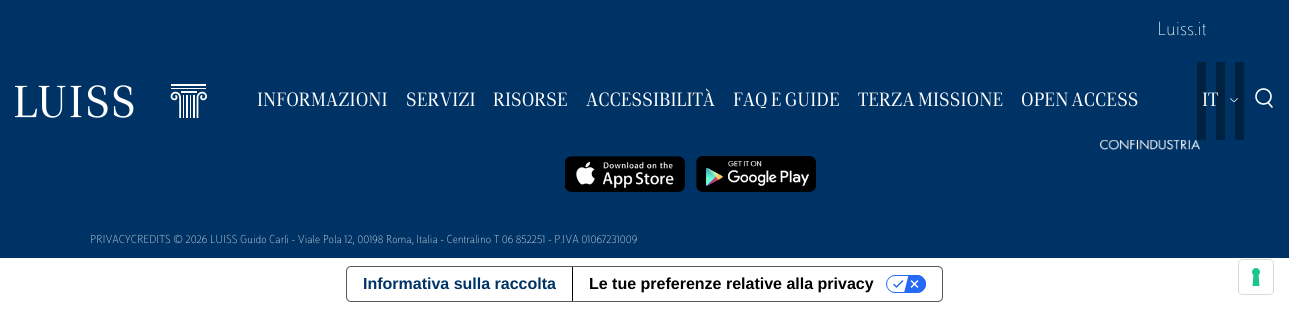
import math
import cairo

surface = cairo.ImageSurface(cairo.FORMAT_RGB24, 1289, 310)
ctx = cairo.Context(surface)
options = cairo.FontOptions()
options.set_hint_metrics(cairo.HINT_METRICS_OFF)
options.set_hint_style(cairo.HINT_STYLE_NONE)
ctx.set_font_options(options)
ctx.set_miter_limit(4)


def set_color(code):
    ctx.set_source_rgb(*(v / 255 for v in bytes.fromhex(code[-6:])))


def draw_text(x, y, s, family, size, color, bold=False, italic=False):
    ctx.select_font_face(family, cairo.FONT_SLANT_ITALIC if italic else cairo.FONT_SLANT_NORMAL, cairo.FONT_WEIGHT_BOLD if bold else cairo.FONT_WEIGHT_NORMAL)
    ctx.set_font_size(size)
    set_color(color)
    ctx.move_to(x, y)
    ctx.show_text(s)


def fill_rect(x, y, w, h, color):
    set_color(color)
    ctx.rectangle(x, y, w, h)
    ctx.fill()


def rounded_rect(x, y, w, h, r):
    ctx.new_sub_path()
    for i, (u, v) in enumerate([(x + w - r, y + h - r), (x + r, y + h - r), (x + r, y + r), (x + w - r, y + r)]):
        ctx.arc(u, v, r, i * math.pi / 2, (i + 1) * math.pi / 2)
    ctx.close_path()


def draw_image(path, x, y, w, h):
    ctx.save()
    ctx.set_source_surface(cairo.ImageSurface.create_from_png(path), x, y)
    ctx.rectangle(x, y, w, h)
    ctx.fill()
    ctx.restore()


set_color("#ffffff")
ctx.paint()
fill_rect(0, 0, 1289, 258, "#003365")
draw_text(1157, 35, "Luiss.it", "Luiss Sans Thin", 20, "#ffffff")
draw_image("assets/img1.png", 15, 84, 192, 34)
draw_text(257, 106, "INFORMAZIONI", "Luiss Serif", 20, "#ffffff")
draw_text(406, 106, "SERVIZI", "Luiss Serif", 20, "#ffffff")
draw_text(493, 106, "RISORSE", "Luiss Serif", 20, "#ffffff")
draw_text(586, 106, "ACCESSIBILITÀ", "Luiss Serif", 20, "#ffffff")
draw_text(733, 106, "FAQ E GUIDE", "Luiss Serif", 20, "#ffffff")
draw_text(858, 106, "TERZA MISSIONE", "Luiss Serif", 20, "#ffffff")
draw_text(1021, 106, "OPEN ACCESS", "Luiss Serif", 20, "#ffffff")
fill_rect(1197, 62, 9, 78, "#002240")
fill_rect(1216, 62, 9, 78, "#002240")
draw_text(1202, 106, "IT", "Luiss Serif", 20, "#ffffff")
fill_rect(1235, 62, 9, 78, "#002240")
draw_image("assets/img2.png", 1230, 98, 8, 4)
ctx.arc(1263.5, 96.5, 7.5, 0, 2 * math.pi)
set_color("#ffffff")
ctx.set_line_width(1.6)
ctx.stroke()
ctx.new_path()
ctx.move_to(1272, 107)
ctx.line_to(1268, 102.5)
ctx.set_line_cap(cairo.LINE_CAP_ROUND)
ctx.set_line_join(cairo.LINE_JOIN_ROUND)
ctx.stroke()
draw_image("assets/img3.png", 1100, 140, 100, 10)
draw_image("assets/img4.png", 565, 156, 120, 36)
draw_image("assets/img5.png", 696, 156, 120, 36)
draw_text(90, 243, "PRIVACYCREDITS © 2026 LUISS Guido Carli - Viale Pola 12, 00198 Roma, Italia - Centralino T 06 852251 - P.IVA 01067231009", "Luiss Sans Thin", 12, "#ffffff")
rounded_rect(346.5, 266.5, 596, 35, 4.5)
set_color("#595959")
ctx.set_line_width(1)
ctx.set_line_cap(cairo.LINE_CAP_BUTT)
ctx.set_line_join(cairo.LINE_JOIN_MITER)
ctx.stroke()
draw_text(363, 289, "Informativa sulla raccolta", "Liberation Sans", 16, "#003365", bold=True)
fill_rect(572, 267, 1, 34, "#000000")
draw_text(589, 289, "Le tue preferenze relative alla privacy", "Liberation Sans", 16, "#000000", bold=True)
draw_image("assets/img6.png", 886, 275, 40, 18)
rounded_rect(1238.5, 259.5, 35, 35, 4.5)
set_color("#d9d9d9")
ctx.stroke()
set_color("#ffffff")
rounded_rect(1239, 260, 34, 34, 4)
ctx.fill()
draw_image("assets/img7.png", 1252, 268, 8, 18)
surface.write_to_png("output.png")
